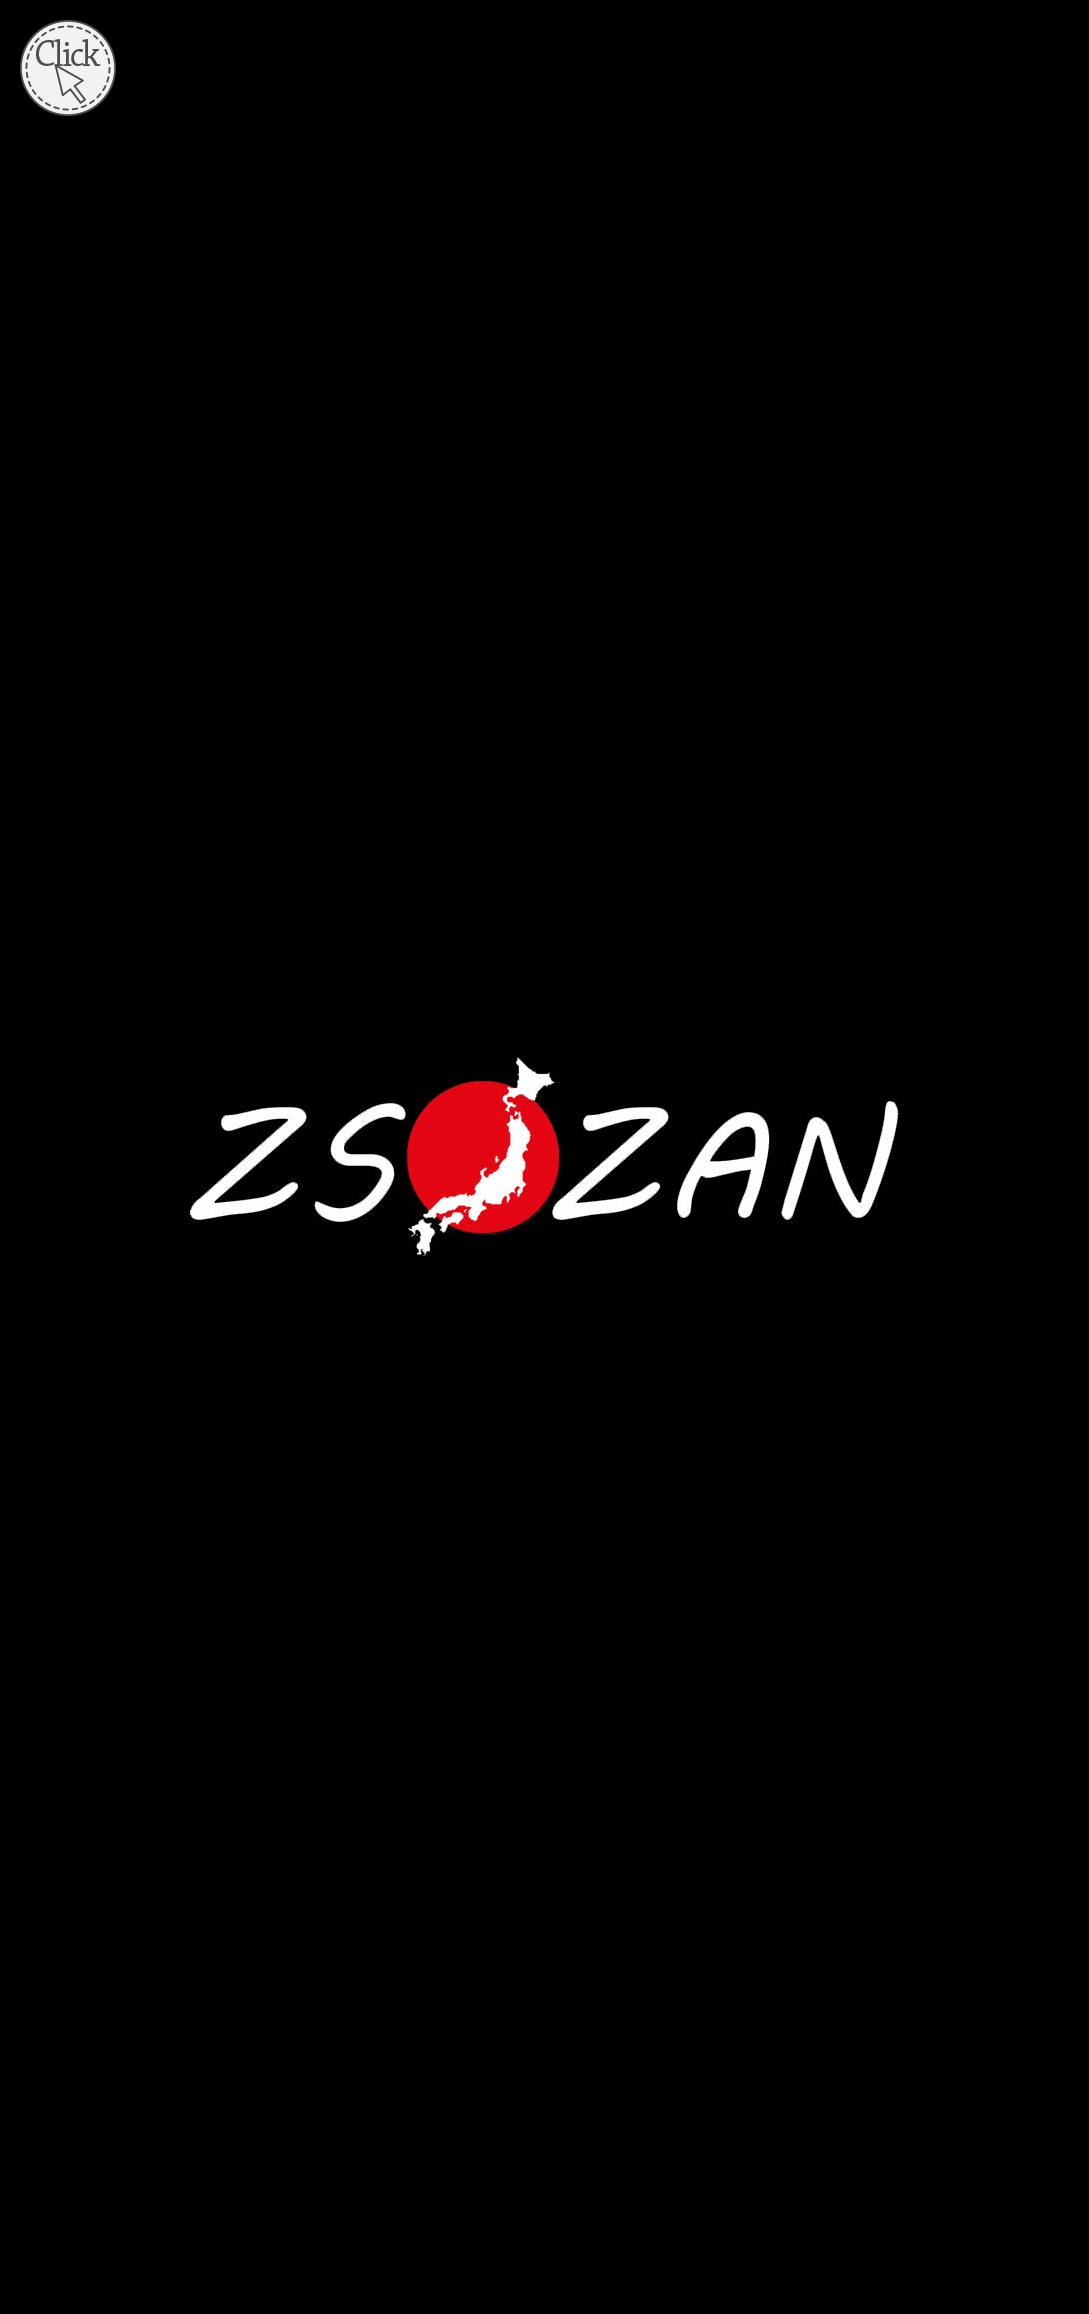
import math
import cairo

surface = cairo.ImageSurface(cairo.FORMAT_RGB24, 1089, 2314)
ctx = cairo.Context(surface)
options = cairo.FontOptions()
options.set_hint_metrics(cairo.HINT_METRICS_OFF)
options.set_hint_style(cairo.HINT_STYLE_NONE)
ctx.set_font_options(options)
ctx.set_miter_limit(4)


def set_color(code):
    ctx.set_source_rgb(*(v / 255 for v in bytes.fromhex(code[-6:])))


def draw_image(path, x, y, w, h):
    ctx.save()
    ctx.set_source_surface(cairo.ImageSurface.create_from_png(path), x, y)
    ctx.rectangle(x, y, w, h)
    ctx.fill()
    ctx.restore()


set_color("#000000")
ctx.paint()
draw_image("assets/img1.png", 20, 20, 96, 96)
draw_image("assets/img2.png", 190, 1057, 709, 200)
surface.write_to_png("output.png")
